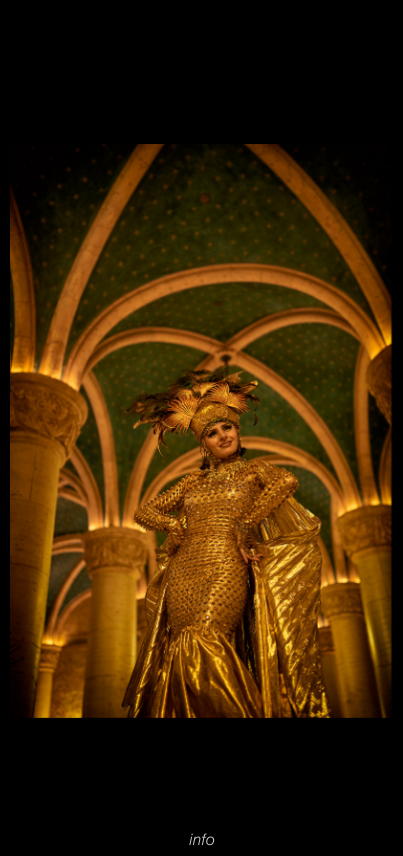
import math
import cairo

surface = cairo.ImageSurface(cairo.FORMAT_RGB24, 403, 856)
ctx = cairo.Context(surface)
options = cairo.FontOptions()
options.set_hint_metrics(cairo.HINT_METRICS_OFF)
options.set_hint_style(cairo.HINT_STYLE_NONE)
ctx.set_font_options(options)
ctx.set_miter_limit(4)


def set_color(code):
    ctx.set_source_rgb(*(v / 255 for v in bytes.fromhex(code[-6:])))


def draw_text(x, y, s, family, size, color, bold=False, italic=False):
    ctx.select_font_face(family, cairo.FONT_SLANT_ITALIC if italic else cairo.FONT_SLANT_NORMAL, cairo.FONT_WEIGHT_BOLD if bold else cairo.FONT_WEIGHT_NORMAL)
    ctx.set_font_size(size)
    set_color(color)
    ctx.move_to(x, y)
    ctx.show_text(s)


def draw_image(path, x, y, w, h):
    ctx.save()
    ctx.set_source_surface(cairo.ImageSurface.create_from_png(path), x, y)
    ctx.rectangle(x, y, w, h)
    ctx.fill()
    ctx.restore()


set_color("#000000")
ctx.paint()
draw_image("assets/img1.png", 10, 144, 383, 574)
draw_text(189, 845, "info", "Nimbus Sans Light", 17, "#cccccc", italic=True)
surface.write_to_png("output.png")
